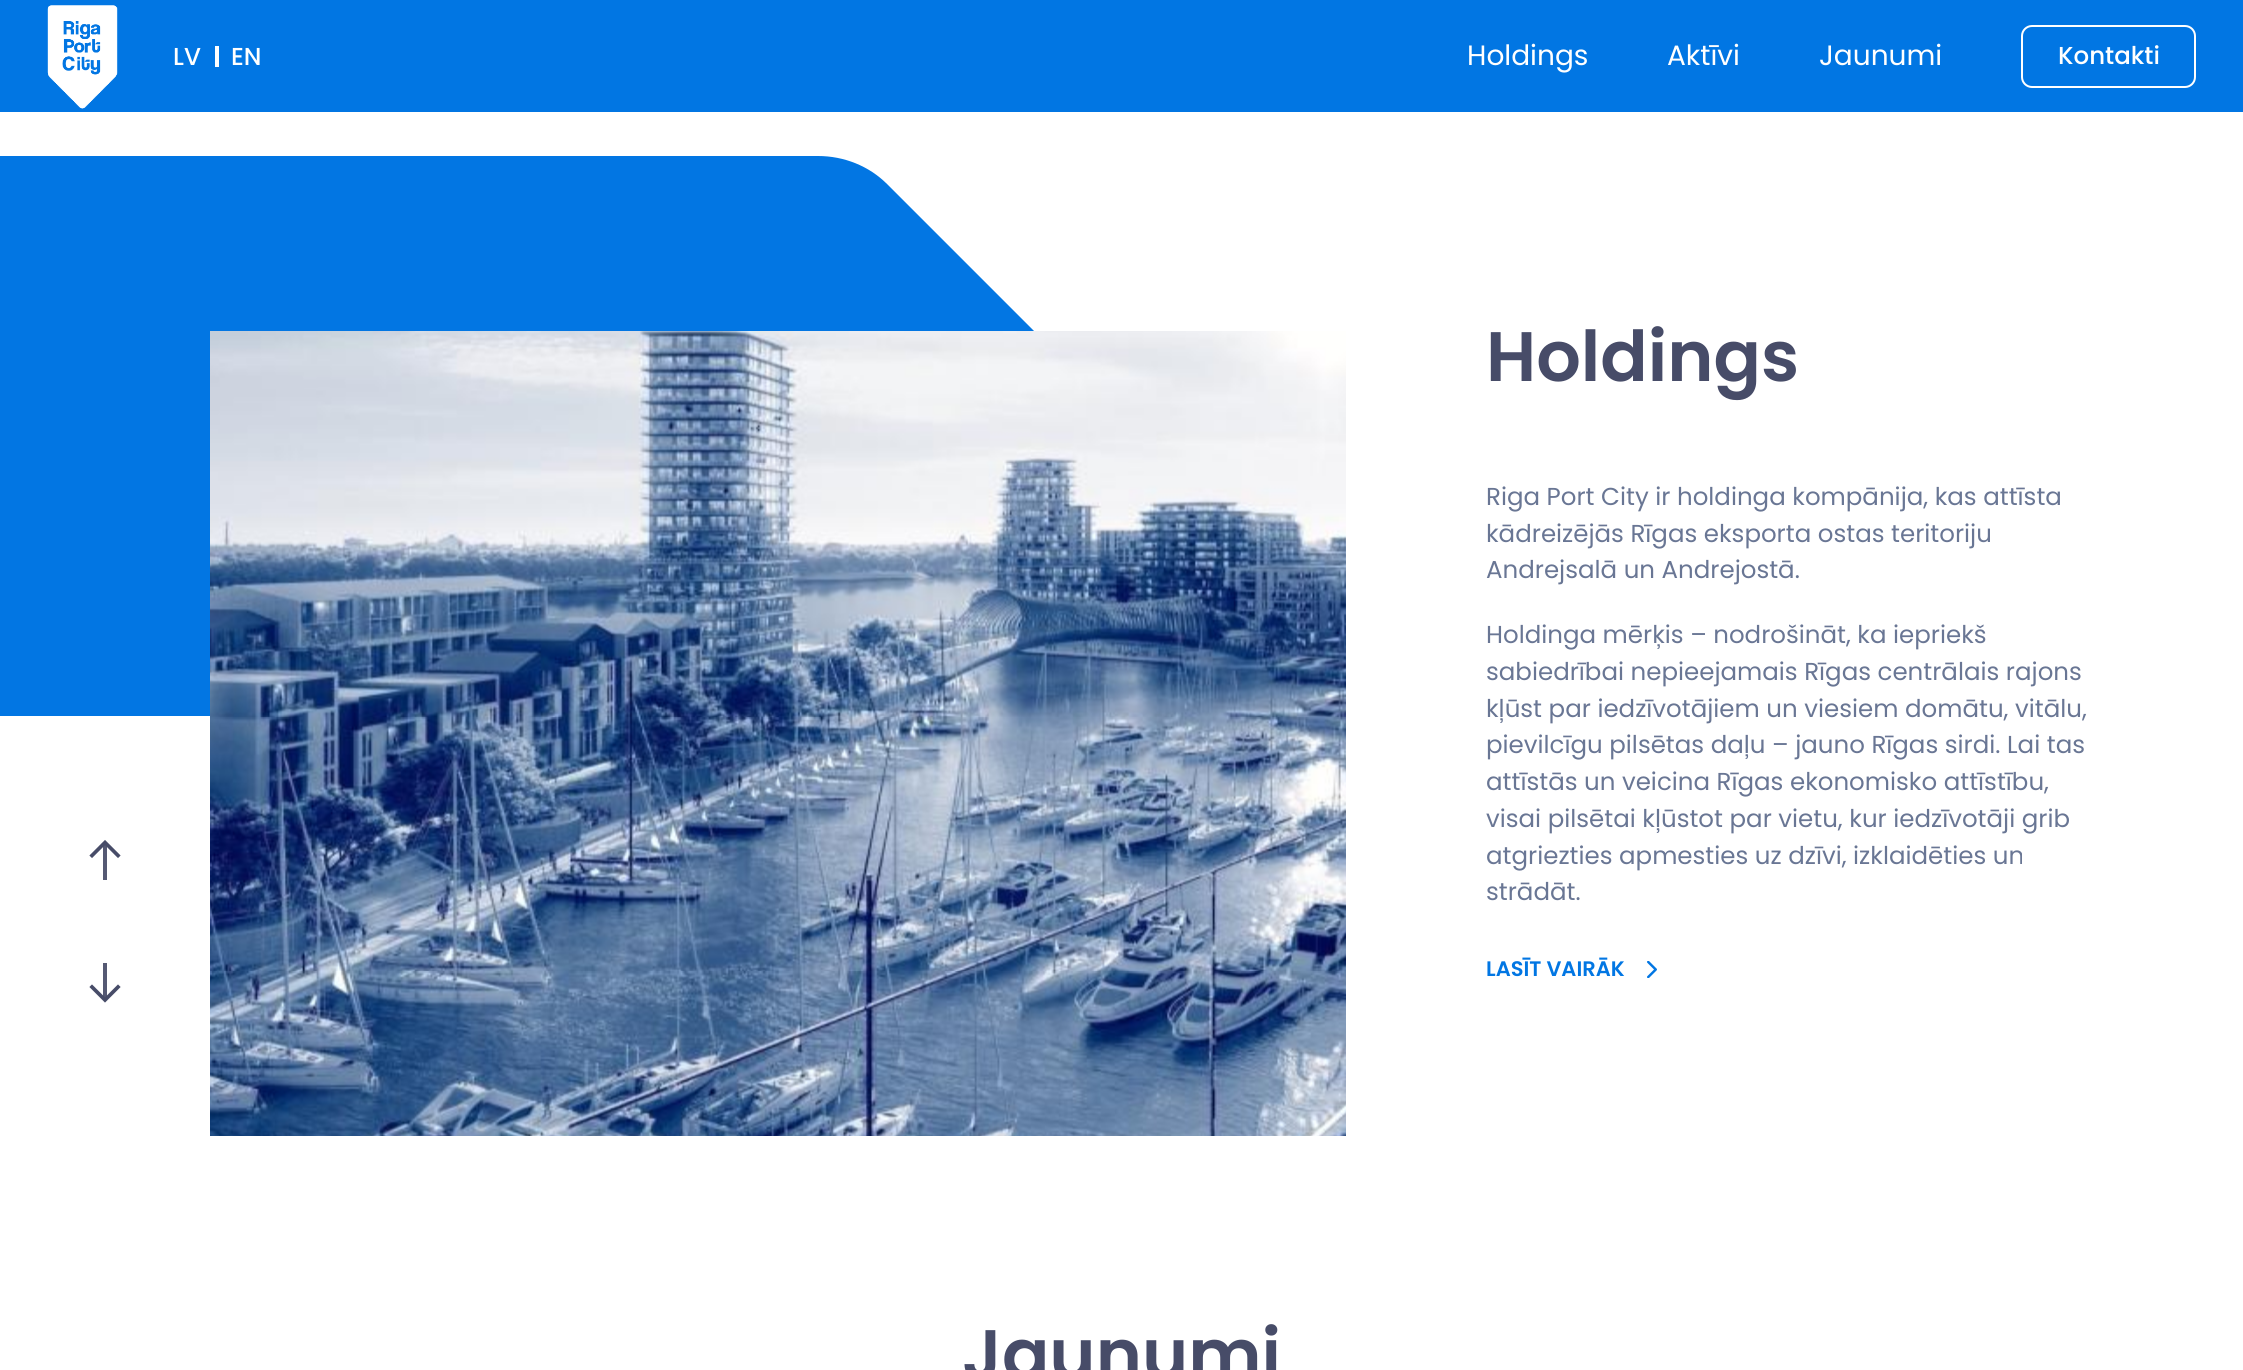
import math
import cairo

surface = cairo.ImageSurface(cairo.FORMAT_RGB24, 2243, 1370)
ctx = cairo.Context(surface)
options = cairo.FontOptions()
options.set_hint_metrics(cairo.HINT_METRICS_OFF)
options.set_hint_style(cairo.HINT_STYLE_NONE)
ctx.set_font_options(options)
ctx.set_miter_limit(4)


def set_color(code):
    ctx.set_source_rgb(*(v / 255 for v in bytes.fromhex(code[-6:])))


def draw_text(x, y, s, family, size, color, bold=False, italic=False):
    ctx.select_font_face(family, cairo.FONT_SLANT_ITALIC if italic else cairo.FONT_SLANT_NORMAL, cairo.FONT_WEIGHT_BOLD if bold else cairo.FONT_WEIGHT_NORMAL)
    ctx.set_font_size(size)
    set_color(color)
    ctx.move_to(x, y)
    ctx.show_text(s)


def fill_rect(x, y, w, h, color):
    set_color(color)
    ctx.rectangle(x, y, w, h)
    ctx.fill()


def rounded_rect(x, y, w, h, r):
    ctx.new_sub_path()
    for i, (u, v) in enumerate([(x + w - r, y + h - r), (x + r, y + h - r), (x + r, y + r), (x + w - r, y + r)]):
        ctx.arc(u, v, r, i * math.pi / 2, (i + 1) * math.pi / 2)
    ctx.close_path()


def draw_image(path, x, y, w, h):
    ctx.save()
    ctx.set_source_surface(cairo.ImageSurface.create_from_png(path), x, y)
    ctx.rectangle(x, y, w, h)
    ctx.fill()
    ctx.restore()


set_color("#ffffff")
ctx.paint()
fill_rect(0, 0, 2243, 112, "#0176e3")
draw_image("assets/img1.png", 47, 5, 71, 104)
draw_text(173, 65, "LV", "Poppins Medium", 24.5, "#ffffff")
fill_rect(215, 46, 4, 21, "#ffffff")
draw_text(231, 65, "EN", "Poppins Medium", 24.5, "#ffffff")
draw_text(1467, 65, "Holdings", "Poppins", 28, "#ffffff")
draw_text(1667, 65, "Aktīvi", "Poppins", 28, "#ffffff")
draw_text(1819, 65, "Jaunumi", "Poppins", 28, "#ffffff")
rounded_rect(2022, 26, 173, 61, 10)
ctx.stroke()
draw_text(2058, 64, "Kontakti", "Poppins Medium", 24.5, "#ffffff")
set_color("#0276e3")
ctx.new_path()
ctx.move_to(-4, 156)
ctx.line_to(818, 156)
ctx.curve_to(844, 156, 869, 166, 887, 184)
ctx.line_to(1279, 576)
ctx.curve_to(1288, 585, 1294, 597, 1294, 610)
ctx.curve_to(1294, 623, 1288, 636, 1279, 645)
ctx.line_to(887, 1037)
ctx.curve_to(869, 1055, 844, 1065, 818, 1065)
ctx.line_to(-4, 1065)
ctx.curve_to(-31, 1065, -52, 1043, -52, 1016)
ctx.line_to(-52, 205)
ctx.curve_to(-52, 178, -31, 156, -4, 156)
ctx.fill()
fill_rect(0, 716, 210, 349, "#ffffff")
fill_rect(103, 843, 4, 37, "#555973")
ctx.new_path()
ctx.move_to(92, 855.5)
ctx.line_to(105, 842.5)
ctx.line_to(118, 855.5)
set_color("#474c68")
ctx.set_line_width(3.7)
ctx.set_line_cap(cairo.LINE_CAP_SQUARE)
ctx.stroke()
fill_rect(103, 963, 4, 37, "#555973")
ctx.new_path()
ctx.move_to(118, 987)
ctx.line_to(105, 1000)
ctx.line_to(92, 987)
set_color("#474c68")
ctx.stroke()
draw_image("assets/img2.png", 210, 331, 1136, 805)
draw_text(1486, 381, "Holdings", "Poppins SemiBold", 70, "#474c68")
draw_text(1486, 505, "Riga Port City ir holdinga kompānija, kas attīsta", "Poppins", 24.5, "#697694")
draw_text(1486, 542, "kādreizējās Rīgas eksporta ostas teritoriju", "Poppins", 24.5, "#697694")
draw_text(1486, 578, "Andrejsalā un Andrejostā.", "Poppins", 24.5, "#697694")
draw_text(1486, 643, "Holdinga mērķis – nodrošināt, ka iepriekš", "Poppins", 24.5, "#697694")
draw_text(1486, 680, "sabiedrībai nepieejamais Rīgas centrālais rajons", "Poppins", 24.5, "#697694")
draw_text(1486, 717, "kļūst par iedzīvotājiem un viesiem domātu, vitālu,", "Poppins", 24.5, "#697694")
draw_text(1486, 753, "pievilcīgu pilsētas daļu – jauno Rīgas sirdi. Lai tas", "Poppins", 24.5, "#697694")
draw_text(1486, 790, "attīstās un veicina Rīgas ekonomisko attīstību,", "Poppins", 24.5, "#697694")
draw_text(1486, 827, "visai pilsētai kļūstot par vietu, kur iedzīvotāji grib", "Poppins", 24.5, "#697694")
draw_text(1486, 864, "atgriezties apmesties uz dzīvi, izklaidēties un", "Poppins", 24.5, "#697694")
draw_text(1486, 900, "strādāt.", "Poppins", 24.5, "#697694")
draw_text(1486, 976, "LASĪT VAIRĀK", "Poppins SemiBold", 21, "#0176e3")
draw_image("assets/img3.png", 1647, 961, 10, 17)
draw_text(962, 1379, "Jaunumi", "Poppins SemiBold", 70, "#474c68")
surface.write_to_png("output.png")
